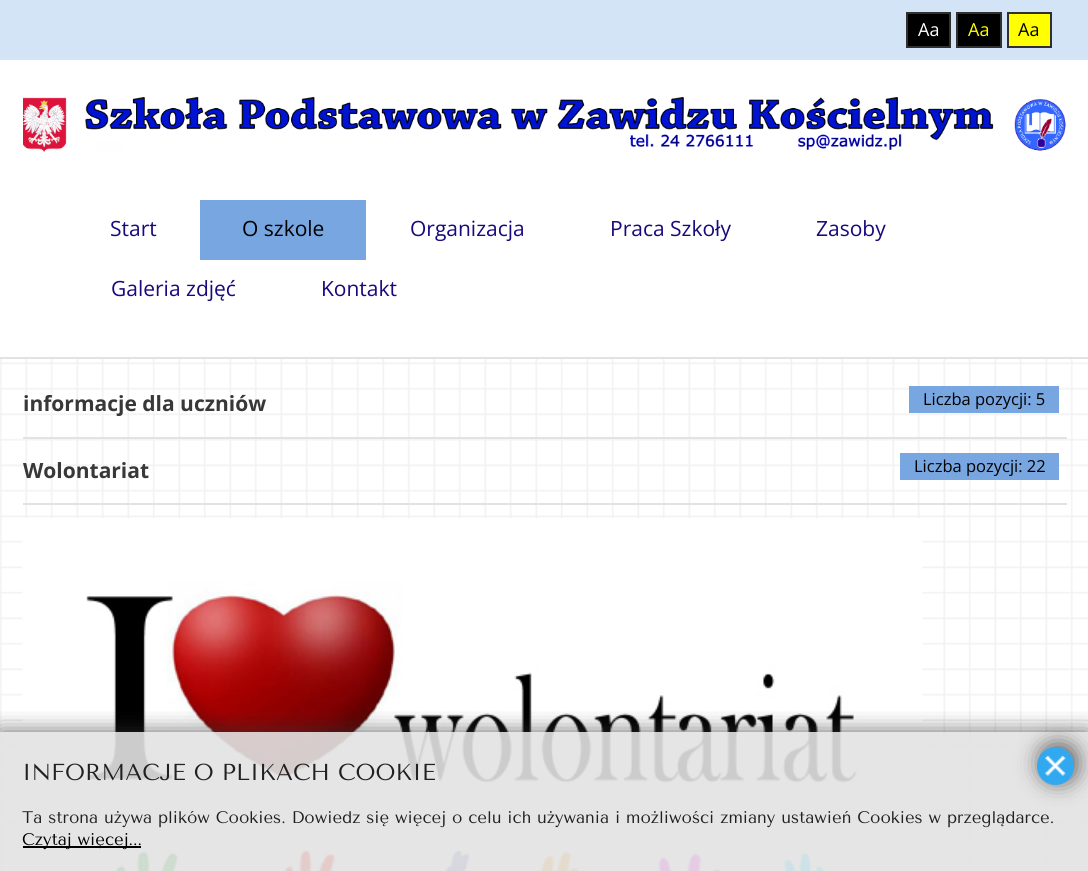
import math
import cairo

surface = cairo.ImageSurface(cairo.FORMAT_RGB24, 1088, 871)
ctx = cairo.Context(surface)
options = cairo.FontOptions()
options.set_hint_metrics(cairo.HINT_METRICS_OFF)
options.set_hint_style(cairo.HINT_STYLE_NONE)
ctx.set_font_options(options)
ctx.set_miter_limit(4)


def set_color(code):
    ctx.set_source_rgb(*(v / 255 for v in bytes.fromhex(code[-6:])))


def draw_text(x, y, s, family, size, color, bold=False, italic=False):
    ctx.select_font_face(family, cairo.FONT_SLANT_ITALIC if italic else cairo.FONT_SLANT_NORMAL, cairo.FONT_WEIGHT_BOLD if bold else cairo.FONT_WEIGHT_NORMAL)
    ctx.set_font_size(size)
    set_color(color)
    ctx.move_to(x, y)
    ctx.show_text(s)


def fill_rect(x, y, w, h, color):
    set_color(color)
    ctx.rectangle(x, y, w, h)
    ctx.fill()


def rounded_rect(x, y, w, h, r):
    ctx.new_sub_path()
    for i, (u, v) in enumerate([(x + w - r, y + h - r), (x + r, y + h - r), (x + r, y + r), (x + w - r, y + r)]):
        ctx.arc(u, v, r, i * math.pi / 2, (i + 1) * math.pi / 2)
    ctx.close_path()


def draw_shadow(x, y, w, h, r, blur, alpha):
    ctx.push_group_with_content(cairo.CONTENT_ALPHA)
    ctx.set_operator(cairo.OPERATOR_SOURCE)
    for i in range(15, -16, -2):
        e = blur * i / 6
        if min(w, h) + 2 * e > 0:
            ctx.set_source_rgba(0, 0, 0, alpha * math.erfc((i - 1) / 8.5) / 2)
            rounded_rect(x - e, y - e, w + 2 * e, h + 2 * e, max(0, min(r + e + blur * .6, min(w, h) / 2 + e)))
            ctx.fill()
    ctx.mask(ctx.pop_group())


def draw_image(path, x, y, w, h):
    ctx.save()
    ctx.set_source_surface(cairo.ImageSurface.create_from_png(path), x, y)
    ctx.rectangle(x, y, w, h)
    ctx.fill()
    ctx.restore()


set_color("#ffffff")
ctx.paint()
draw_image("assets/img1.png", 0, 359, 1088, 512)
fill_rect(0, 357, 1088, 2, "#e2e2e2")
fill_rect(0, 0, 1088, 59, "#d4e4f7")
fill_rect(0, 59, 1088, 1, "#e2e2e2")
set_color("#000000")
ctx.rectangle(907, 13, 43, 34)
ctx.fill_preserve()
set_color("#303030")
ctx.stroke()
draw_text(918, 36, "Aa", "Open Sans", 18, "#ffffff")
set_color("#000000")
ctx.rectangle(957, 13, 44, 34)
ctx.fill_preserve()
set_color("#303030")
ctx.stroke()
draw_text(968, 36, "Aa", "Open Sans", 18, "#ffff00")
ctx.rectangle(1008, 13, 43, 34)
ctx.fill_preserve()
set_color("#303030")
ctx.stroke()
draw_text(1018, 36, "Aa", "Open Sans", 18, "#000000")
draw_image("assets/img2.png", 23, 97, 1043, 55)
draw_text(110, 236, "Start", "Open Sans", 21, "#18097d")
fill_rect(200, 200, 166, 60, "#77a6e0")
draw_text(242, 236, "O szkole", "Open Sans", 21, "#000000")
draw_text(410, 236, "Organizacja", "Open Sans", 21, "#18097d")
draw_text(610, 236, "Praca Szkoły", "Open Sans", 21, "#18097d")
draw_text(816, 236, "Zasoby", "Open Sans", 21, "#18097d")
draw_text(111, 296, "Galeria zdjęć", "Open Sans", 21, "#18097d")
draw_text(321, 296, "Kontakt", "Open Sans", 21, "#18097d")
fill_rect(23, 437, 1044, 2, "#e2e2e2")
draw_text(23, 411, "informacje dla uczniów", "Open Sans", 21, "#383838", bold=True)
fill_rect(909, 386, 150, 27, "#77a6e0")
draw_text(923, 405, "Liczba pozycji: 5", "Open Sans", 16.5, "#000000")
fill_rect(23, 503, 1044, 2, "#e2e2e2")
draw_text(23, 478, "Wolontariat", "Open Sans", 21, "#383838", bold=True)
fill_rect(900, 453, 159, 27, "#77a6e0")
draw_text(914, 472, "Liczba pozycji: 22", "Open Sans", 16.5, "#000000")
draw_image("assets/img3.png", 22, 518, 901, 353)
ctx.save()
ctx.rectangle(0, 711, 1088, 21)
ctx.clip()
set_color("#323232")
draw_shadow(0, 732, 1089, 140, 0, 11, 0.75)
ctx.restore()
ctx.set_source_rgba(0.886, 0.886, 0.886, 0.9)
ctx.rectangle(0, 732, 1088, 139)
ctx.fill()
set_color("#323232")
draw_shadow(1040, 744, 37, 38, 18.5, 11, 0.75)
set_color("#31a8f0")
rounded_rect(1037, 747, 37, 38, 18.5)
ctx.fill()
draw_image("assets/img4.png", 1045, 756, 21, 20)
draw_text(22, 780, "INFORMACJE O PLIKACH COOKIE", "Tenor Sans", 23.1, "#212121")
draw_text(22, 823, "Ta strona używa plików Cookies. Dowiedz się więcej o celu ich używania i możliwości zmiany ustawień Cookies w przeglądarce.", "Tenor Sans", 16.8, "#212121")
fill_rect(23, 846, 118, 2, "#000000")
draw_text(22, 845, "Czytaj więcej...", "Tenor Sans", 16.8, "#000000")
surface.write_to_png("output.png")
